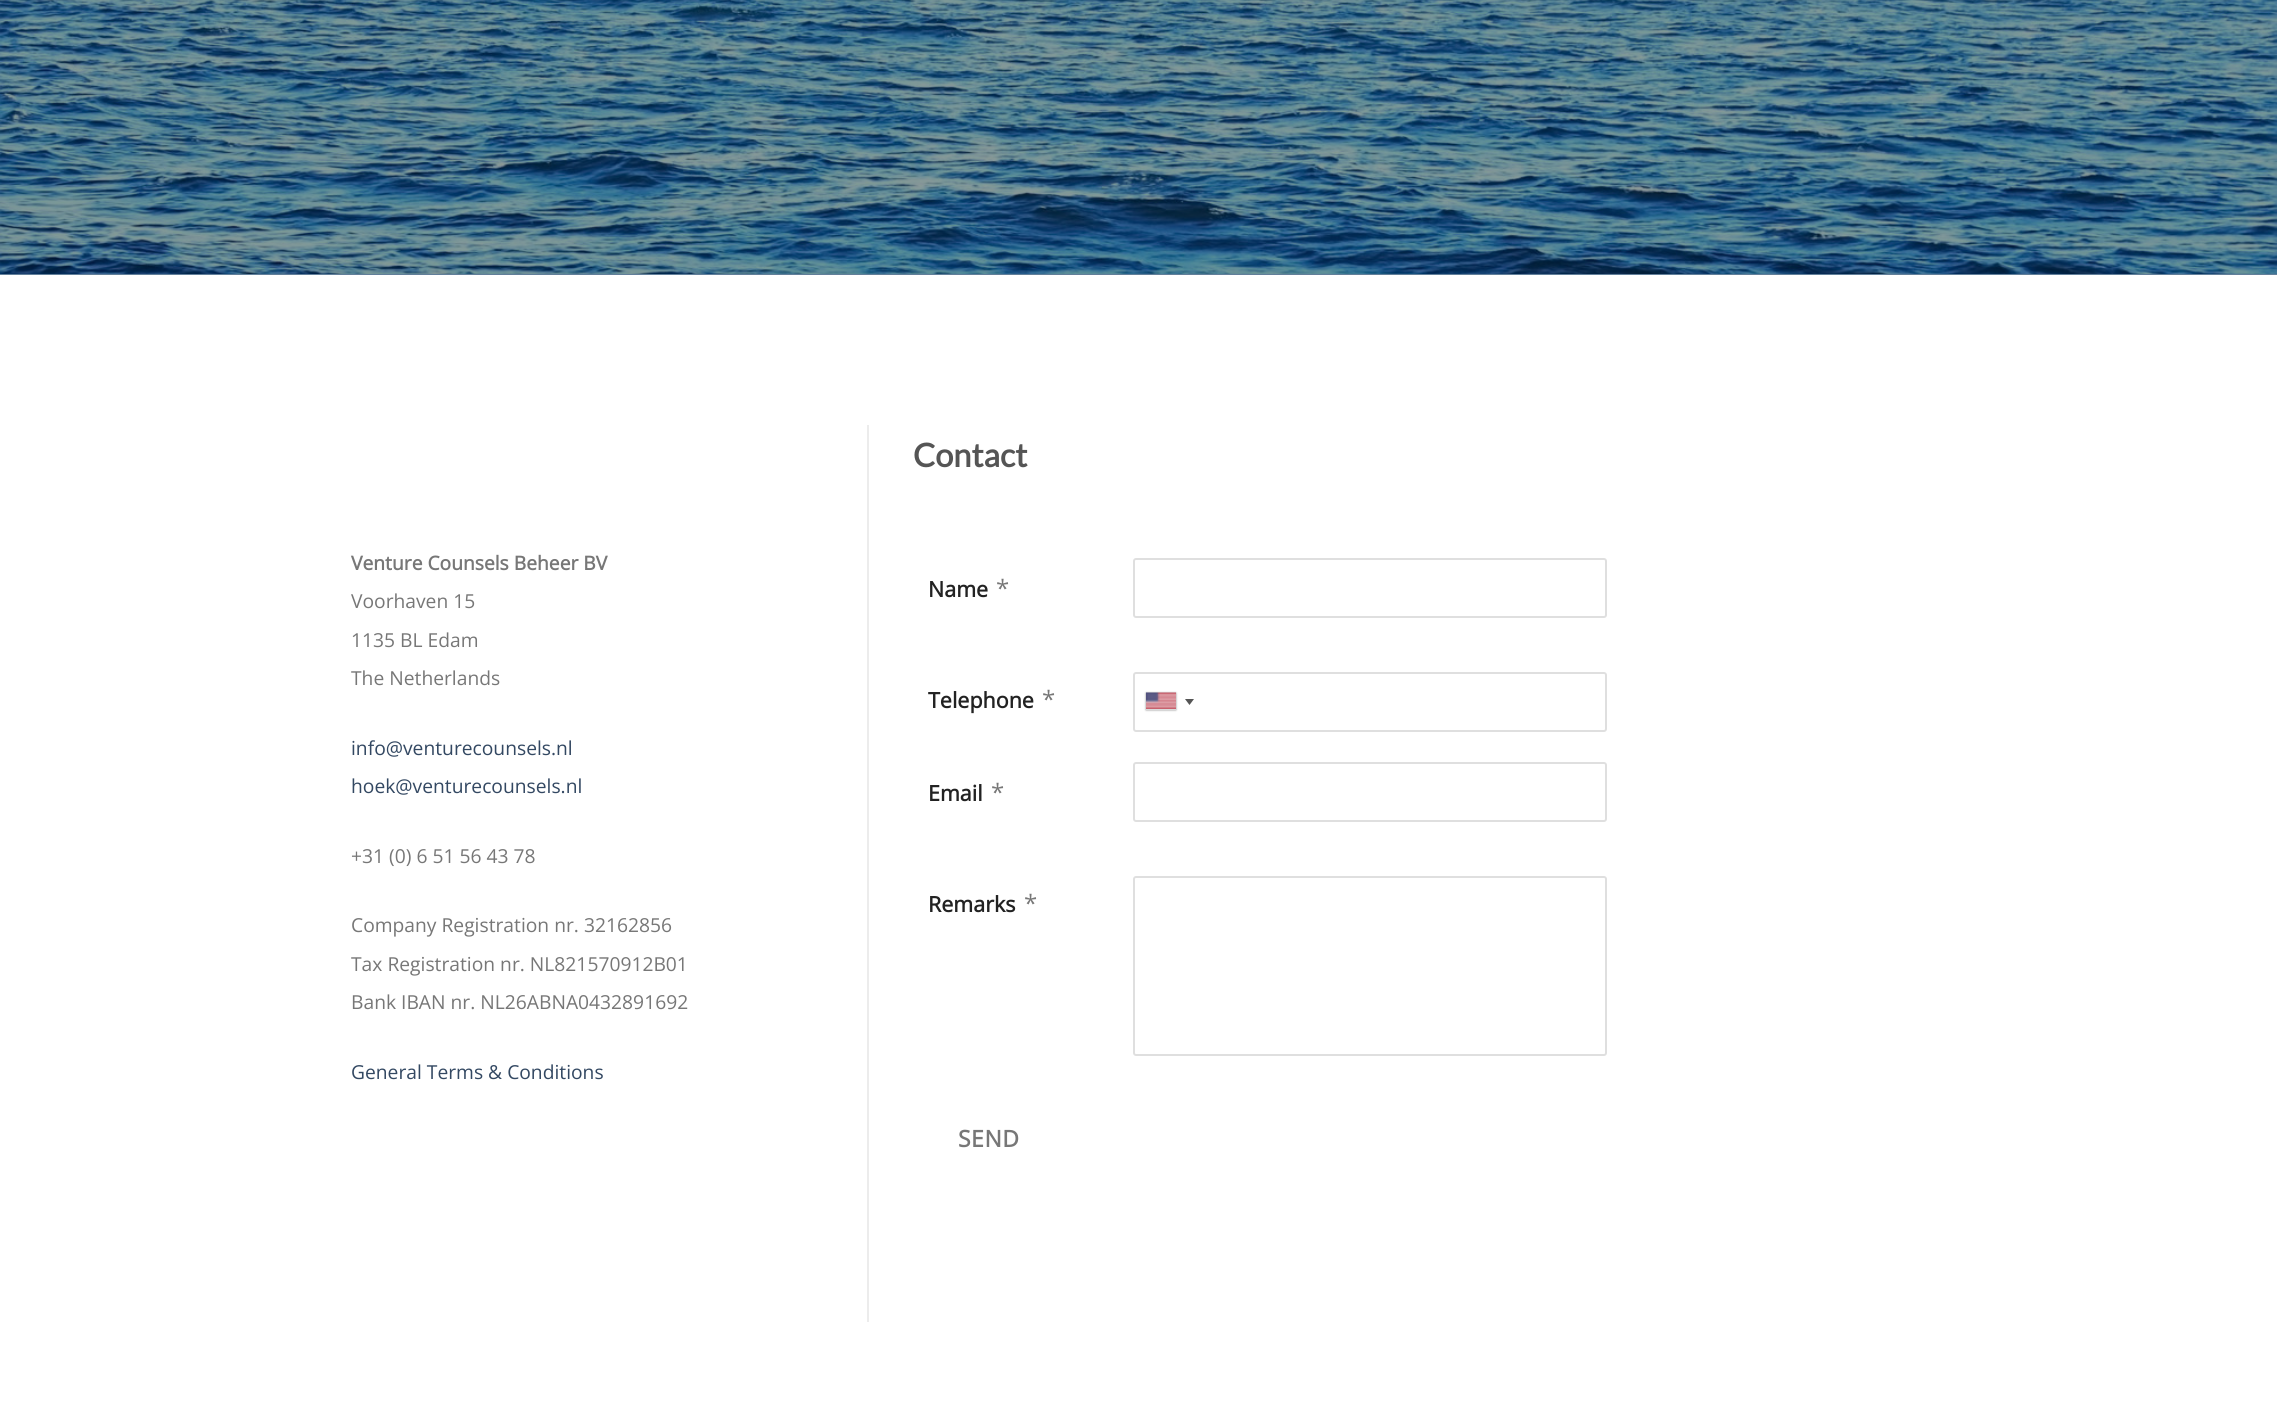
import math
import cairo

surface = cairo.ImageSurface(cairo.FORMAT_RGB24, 2277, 1414)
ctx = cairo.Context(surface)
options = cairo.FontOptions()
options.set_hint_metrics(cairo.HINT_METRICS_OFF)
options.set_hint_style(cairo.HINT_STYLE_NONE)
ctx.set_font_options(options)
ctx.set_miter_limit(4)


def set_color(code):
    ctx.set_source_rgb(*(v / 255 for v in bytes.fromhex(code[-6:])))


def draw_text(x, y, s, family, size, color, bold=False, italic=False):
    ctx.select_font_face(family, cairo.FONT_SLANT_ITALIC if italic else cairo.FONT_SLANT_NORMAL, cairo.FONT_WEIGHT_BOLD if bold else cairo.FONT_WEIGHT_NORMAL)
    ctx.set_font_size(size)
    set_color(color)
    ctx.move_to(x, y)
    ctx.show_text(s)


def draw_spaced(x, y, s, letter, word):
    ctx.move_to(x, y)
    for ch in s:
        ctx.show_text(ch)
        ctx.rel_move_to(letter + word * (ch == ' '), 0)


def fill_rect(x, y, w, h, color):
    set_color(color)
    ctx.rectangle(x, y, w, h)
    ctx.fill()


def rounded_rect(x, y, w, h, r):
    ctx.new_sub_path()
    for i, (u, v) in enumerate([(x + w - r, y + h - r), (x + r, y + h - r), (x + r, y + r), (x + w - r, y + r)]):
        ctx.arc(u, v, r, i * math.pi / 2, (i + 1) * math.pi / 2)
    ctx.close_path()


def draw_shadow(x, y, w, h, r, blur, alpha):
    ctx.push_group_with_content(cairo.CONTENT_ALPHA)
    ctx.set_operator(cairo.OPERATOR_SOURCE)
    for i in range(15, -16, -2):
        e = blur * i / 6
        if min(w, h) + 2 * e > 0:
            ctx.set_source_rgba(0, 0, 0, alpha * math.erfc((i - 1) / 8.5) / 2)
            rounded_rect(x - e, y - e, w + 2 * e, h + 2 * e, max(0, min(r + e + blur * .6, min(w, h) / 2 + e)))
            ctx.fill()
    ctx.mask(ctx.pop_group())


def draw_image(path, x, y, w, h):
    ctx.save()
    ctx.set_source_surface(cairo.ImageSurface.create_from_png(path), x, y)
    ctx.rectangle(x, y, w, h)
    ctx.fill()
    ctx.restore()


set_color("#ffffff")
ctx.paint()
fill_rect(0, 274, 2277, 1, "#627f9a")
draw_image("assets/img1.png", 0, 0, 2277, 274)
fill_rect(867, 425, 2, 897, "#ececec")
draw_text(913, 467, "Contact", "Lato", 32.5, "#555555", bold=True)
draw_text(351, 570, "Venture Counsels Beheer BV", "Open Sans", 19.25, "#777777", bold=True)
draw_text(351, 608, "Voorhaven 15", "Open Sans", 19.25, "#777777")
draw_text(351, 647, "1135 BL Edam", "Open Sans", 19.25, "#777777")
draw_text(351, 685, "The Netherlands", "Open Sans", 19.25, "#777777")
draw_text(351, 755, "info@venturecounsels.nl", "Open Sans", 19.25, "#334862")
draw_text(351, 793, "hoek@venturecounsels.nl", "Open Sans", 19.25, "#334862")
draw_text(351, 863, "+31 (0) 6 51 56 43 78", "Open Sans", 19.25, "#777777")
draw_text(351, 932, "Company Registration nr. 32162856", "Open Sans", 19.25, "#777777")
draw_text(351, 971, "Tax Registration nr. NL821570912B01", "Open Sans", 19.25, "#777777")
draw_text(351, 1009, "Bank IBAN nr. NL26ABNA0432891692", "Open Sans", 19.25, "#777777")
draw_text(351, 1079, "General Terms & Conditions", "Open Sans", 19.25, "#334862")
draw_text(928, 597, "Name", "Open Sans", 21.5, "#222222", bold=True)
draw_text(996, 597, "*", "Open Sans", 24, "#777777")
rounded_rect(1134, 559, 472, 58, 2)
set_color("#dfdfdf")
ctx.stroke()
draw_text(928, 708, "Telephone", "Open Sans", 21.5, "#222222", bold=True)
draw_text(1042, 708, "*", "Open Sans", 24, "#777777")
rounded_rect(1134, 673, 472, 58, 2)
set_color("#dfdfdf")
ctx.stroke()
set_color("#888888")
draw_shadow(1146, 693, 30, 17, 0, 1, 1)
fill_rect(1146, 709, 30, 1, "#dbdbdb")
draw_image("assets/img2.png", 1146, 692, 30, 17)
set_color("#555555")
ctx.new_path()
ctx.move_to(1185, 699)
ctx.line_to(1194, 699)
ctx.line_to(1189.5, 705)
ctx.close_path()
ctx.fill()
draw_text(928, 801, "Email", "Open Sans", 21.5, "#222222", bold=True)
draw_text(991, 801, "*", "Open Sans", 24, "#777777")
rounded_rect(1134, 763, 472, 58, 2)
set_color("#dfdfdf")
ctx.stroke()
draw_text(928, 912, "Remarks", "Open Sans", 21.5, "#222222", bold=True)
draw_text(1024, 912, "*", "Open Sans", 24, "#777777")
rounded_rect(1134, 877, 472, 178, 2)
set_color("#dfdfdf")
ctx.stroke()
ctx.select_font_face("Open Sans", cairo.FONT_SLANT_NORMAL, cairo.FONT_WEIGHT_BOLD)
ctx.set_font_size(23)
set_color("#777777")
draw_spaced(958, 1147, "SEND", 0.5, 0)
surface.write_to_png("output.png")
